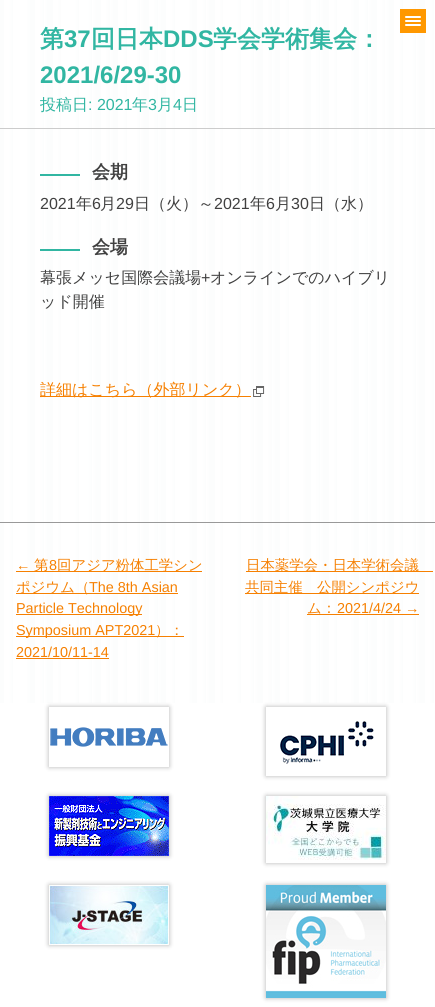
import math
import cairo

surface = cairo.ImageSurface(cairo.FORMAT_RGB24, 435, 1007)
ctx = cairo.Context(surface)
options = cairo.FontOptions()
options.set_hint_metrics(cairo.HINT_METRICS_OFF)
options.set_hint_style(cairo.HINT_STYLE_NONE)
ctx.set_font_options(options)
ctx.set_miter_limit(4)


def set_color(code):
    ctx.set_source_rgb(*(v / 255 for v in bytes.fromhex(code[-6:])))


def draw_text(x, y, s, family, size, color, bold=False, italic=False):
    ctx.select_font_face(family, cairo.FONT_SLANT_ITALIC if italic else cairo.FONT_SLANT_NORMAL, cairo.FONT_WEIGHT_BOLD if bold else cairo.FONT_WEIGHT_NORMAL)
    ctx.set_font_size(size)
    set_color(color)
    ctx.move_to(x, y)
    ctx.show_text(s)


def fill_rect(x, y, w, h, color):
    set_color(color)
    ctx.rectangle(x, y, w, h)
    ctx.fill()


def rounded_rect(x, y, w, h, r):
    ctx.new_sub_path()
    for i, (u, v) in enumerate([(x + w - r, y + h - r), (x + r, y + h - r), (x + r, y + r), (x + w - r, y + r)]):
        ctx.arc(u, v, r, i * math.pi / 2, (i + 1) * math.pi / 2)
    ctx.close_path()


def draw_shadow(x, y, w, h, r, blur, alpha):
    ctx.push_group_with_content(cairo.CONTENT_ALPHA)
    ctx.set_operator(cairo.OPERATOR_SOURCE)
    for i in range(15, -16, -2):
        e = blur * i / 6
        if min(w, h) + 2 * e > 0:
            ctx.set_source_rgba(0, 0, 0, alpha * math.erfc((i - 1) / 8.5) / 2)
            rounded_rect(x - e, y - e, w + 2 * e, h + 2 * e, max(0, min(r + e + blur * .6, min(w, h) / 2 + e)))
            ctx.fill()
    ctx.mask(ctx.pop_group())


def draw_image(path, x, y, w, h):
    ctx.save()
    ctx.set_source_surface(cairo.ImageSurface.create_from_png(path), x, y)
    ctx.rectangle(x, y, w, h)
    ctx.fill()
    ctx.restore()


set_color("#ffffff")
ctx.paint()
gradient = cairo.LinearGradient(0, 548, 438, 548)
gradient.add_color_stop_rgba(0, 1, 1, 1, 1)
gradient.add_color_stop_rgba(0, 0.988, 0.992, 0.992, 1)
gradient.add_color_stop_rgba(0.01, 0.988, 0.992, 0.992, 1)
gradient.add_color_stop_rgba(0.01, 1, 1, 1, 1)
gradient.add_color_stop_rgba(0.02, 1, 1, 1, 1)
gradient.add_color_stop_rgba(0.02, 0.988, 0.992, 0.992, 1)
gradient.add_color_stop_rgba(0.02, 1, 1, 1, 1)
gradient.add_color_stop_rgba(0.03, 0.988, 0.992, 0.992, 1)
gradient.add_color_stop_rgba(0.03, 1, 1, 1, 1)
gradient.add_color_stop_rgba(0.05, 1, 1, 1, 1)
gradient.add_color_stop_rgba(0.05, 0.988, 0.992, 0.992, 1)
gradient.add_color_stop_rgba(0.05, 1, 1, 1, 1)
gradient.add_color_stop_rgba(0.06, 1, 1, 1, 1)
gradient.add_color_stop_rgba(0.06, 0.988, 0.992, 0.992, 1)
gradient.add_color_stop_rgba(0.06, 1, 1, 1, 1)
gradient.add_color_stop_rgba(0.07, 0.988, 0.992, 0.992, 1)
gradient.add_color_stop_rgba(0.08, 0.988, 0.992, 0.992, 1)
gradient.add_color_stop_rgba(0.08, 1, 1, 1, 1)
gradient.add_color_stop_rgba(0.09, 1, 1, 1, 1)
gradient.add_color_stop_rgba(0.09, 0.988, 0.992, 0.992, 1)
gradient.add_color_stop_rgba(0.09, 1, 1, 1, 1)
gradient.add_color_stop_rgba(0.1, 0.988, 0.992, 0.992, 1)
gradient.add_color_stop_rgba(0.1, 1, 1, 1, 1)
gradient.add_color_stop_rgba(0.11, 0.988, 0.992, 0.992, 1)
gradient.add_color_stop_rgba(0.12, 0.988, 0.992, 0.992, 1)
gradient.add_color_stop_rgba(0.12, 1, 1, 1, 1)
gradient.add_color_stop_rgba(0.13, 1, 1, 1, 1)
gradient.add_color_stop_rgba(0.13, 0.988, 0.992, 0.992, 1)
gradient.add_color_stop_rgba(0.13, 1, 1, 1, 1)
gradient.add_color_stop_rgba(0.14, 0.988, 0.992, 0.992, 1)
gradient.add_color_stop_rgba(0.14, 1, 1, 1, 1)
gradient.add_color_stop_rgba(0.16, 1, 1, 1, 1)
gradient.add_color_stop_rgba(0.16, 0.988, 0.992, 0.992, 1)
gradient.add_color_stop_rgba(0.16, 1, 1, 1, 1)
gradient.add_color_stop_rgba(0.17, 1, 1, 1, 1)
gradient.add_color_stop_rgba(0.17, 0.988, 0.992, 0.992, 1)
gradient.add_color_stop_rgba(0.17, 1, 1, 1, 1)
gradient.add_color_stop_rgba(0.18, 0.988, 0.992, 0.992, 1)
gradient.add_color_stop_rgba(0.18, 1, 1, 1, 1)
gradient.add_color_stop_rgba(0.2, 1, 1, 1, 1)
gradient.add_color_stop_rgba(0.2, 0.988, 0.992, 0.992, 1)
gradient.add_color_stop_rgba(0.2, 1, 1, 1, 1)
gradient.add_color_stop_rgba(0.21, 0.988, 0.992, 0.992, 1)
gradient.add_color_stop_rgba(0.21, 1, 1, 1, 1)
gradient.add_color_stop_rgba(0.22, 0.988, 0.992, 0.992, 1)
gradient.add_color_stop_rgba(0.23, 0.988, 0.992, 0.992, 1)
gradient.add_color_stop_rgba(0.23, 1, 1, 1, 1)
gradient.add_color_stop_rgba(0.24, 1, 1, 1, 1)
gradient.add_color_stop_rgba(0.24, 0.988, 0.992, 0.992, 1)
gradient.add_color_stop_rgba(0.24, 1, 1, 1, 1)
gradient.add_color_stop_rgba(0.25, 0.988, 0.992, 0.992, 1)
gradient.add_color_stop_rgba(0.25, 1, 1, 1, 1)
gradient.add_color_stop_rgba(0.26, 0.988, 0.992, 0.992, 1)
gradient.add_color_stop_rgba(0.27, 0.988, 0.992, 0.992, 1)
gradient.add_color_stop_rgba(0.27, 1, 1, 1, 1)
gradient.add_color_stop_rgba(0.28, 1, 1, 1, 1)
gradient.add_color_stop_rgba(0.28, 0.988, 0.992, 0.992, 1)
gradient.add_color_stop_rgba(0.28, 1, 1, 1, 1)
gradient.add_color_stop_rgba(0.29, 0.988, 0.992, 0.992, 1)
gradient.add_color_stop_rgba(0.29, 1, 1, 1, 1)
gradient.add_color_stop_rgba(0.31, 1, 1, 1, 1)
gradient.add_color_stop_rgba(0.31, 0.988, 0.992, 0.992, 1)
gradient.add_color_stop_rgba(0.31, 1, 1, 1, 1)
gradient.add_color_stop_rgba(0.32, 0.988, 0.992, 0.992, 1)
gradient.add_color_stop_rgba(0.32, 1, 1, 1, 1)
gradient.add_color_stop_rgba(0.33, 0.988, 0.992, 0.992, 1)
gradient.add_color_stop_rgba(0.34, 0.988, 0.992, 0.992, 1)
gradient.add_color_stop_rgba(0.34, 1, 1, 1, 1)
gradient.add_color_stop_rgba(0.35, 1, 1, 1, 1)
gradient.add_color_stop_rgba(0.35, 0.988, 0.992, 0.992, 1)
gradient.add_color_stop_rgba(0.35, 1, 1, 1, 1)
gradient.add_color_stop_rgba(0.36, 0.988, 0.992, 0.992, 1)
gradient.add_color_stop_rgba(0.36, 1, 1, 1, 1)
gradient.add_color_stop_rgba(0.37, 0.988, 0.992, 0.992, 1)
gradient.add_color_stop_rgba(0.38, 0.988, 0.992, 0.992, 1)
gradient.add_color_stop_rgba(0.38, 1, 1, 1, 1)
gradient.add_color_stop_rgba(0.39, 1, 1, 1, 1)
gradient.add_color_stop_rgba(0.39, 0.988, 0.992, 0.992, 1)
gradient.add_color_stop_rgba(0.39, 1, 1, 1, 1)
gradient.add_color_stop_rgba(0.4, 0.988, 0.992, 0.992, 1)
gradient.add_color_stop_rgba(0.4, 1, 1, 1, 1)
gradient.add_color_stop_rgba(0.42, 1, 1, 1, 1)
gradient.add_color_stop_rgba(0.42, 0.988, 0.992, 0.992, 1)
gradient.add_color_stop_rgba(0.42, 1, 1, 1, 1)
gradient.add_color_stop_rgba(0.43, 1, 1, 1, 1)
gradient.add_color_stop_rgba(0.43, 0.988, 0.992, 0.992, 1)
gradient.add_color_stop_rgba(0.43, 1, 1, 1, 1)
gradient.add_color_stop_rgba(0.44, 0.988, 0.992, 0.992, 1)
gradient.add_color_stop_rgba(0.45, 0.988, 0.992, 0.992, 1)
gradient.add_color_stop_rgba(0.45, 1, 1, 1, 1)
gradient.add_color_stop_rgba(0.46, 1, 1, 1, 1)
gradient.add_color_stop_rgba(0.46, 0.988, 0.992, 0.992, 1)
gradient.add_color_stop_rgba(0.46, 1, 1, 1, 1)
gradient.add_color_stop_rgba(0.47, 0.988, 0.992, 0.992, 1)
gradient.add_color_stop_rgba(0.47, 1, 1, 1, 1)
gradient.add_color_stop_rgba(0.48, 0.988, 0.992, 0.992, 1)
gradient.add_color_stop_rgba(0.49, 0.988, 0.992, 0.992, 1)
gradient.add_color_stop_rgba(0.49, 1, 1, 1, 1)
gradient.add_color_stop_rgba(0.5, 1, 1, 1, 1)
gradient.add_color_stop_rgba(0.5, 0.988, 0.992, 0.992, 1)
gradient.add_color_stop_rgba(0.5, 1, 1, 1, 1)
gradient.add_color_stop_rgba(0.51, 0.988, 0.992, 0.992, 1)
gradient.add_color_stop_rgba(0.51, 1, 1, 1, 1)
gradient.add_color_stop_rgba(0.53, 1, 1, 1, 1)
gradient.add_color_stop_rgba(0.53, 0.988, 0.992, 0.992, 1)
gradient.add_color_stop_rgba(0.53, 1, 1, 1, 1)
gradient.add_color_stop_rgba(0.54, 1, 1, 1, 1)
gradient.add_color_stop_rgba(0.54, 0.988, 0.992, 0.992, 1)
gradient.add_color_stop_rgba(0.54, 1, 1, 1, 1)
gradient.add_color_stop_rgba(0.55, 0.988, 0.992, 0.992, 1)
gradient.add_color_stop_rgba(0.55, 1, 1, 1, 1)
gradient.add_color_stop_rgba(0.57, 1, 1, 1, 1)
gradient.add_color_stop_rgba(0.57, 0.988, 0.992, 0.992, 1)
gradient.add_color_stop_rgba(0.57, 1, 1, 1, 1)
gradient.add_color_stop_rgba(0.58, 0.988, 0.992, 0.992, 1)
gradient.add_color_stop_rgba(0.58, 1, 1, 1, 1)
gradient.add_color_stop_rgba(0.59, 0.988, 0.992, 0.992, 1)
gradient.add_color_stop_rgba(0.6, 0.988, 0.992, 0.992, 1)
gradient.add_color_stop_rgba(0.6, 1, 1, 1, 1)
gradient.add_color_stop_rgba(0.61, 1, 1, 1, 1)
gradient.add_color_stop_rgba(0.61, 0.988, 0.992, 0.992, 1)
gradient.add_color_stop_rgba(0.61, 1, 1, 1, 1)
gradient.add_color_stop_rgba(0.62, 0.988, 0.992, 0.992, 1)
gradient.add_color_stop_rgba(0.62, 1, 1, 1, 1)
gradient.add_color_stop_rgba(0.63, 0.988, 0.992, 0.992, 1)
gradient.add_color_stop_rgba(0.64, 0.988, 0.992, 0.992, 1)
gradient.add_color_stop_rgba(0.64, 1, 1, 1, 1)
gradient.add_color_stop_rgba(0.65, 1, 1, 1, 1)
gradient.add_color_stop_rgba(0.65, 0.988, 0.992, 0.992, 1)
gradient.add_color_stop_rgba(0.65, 1, 1, 1, 1)
gradient.add_color_stop_rgba(0.66, 0.988, 0.992, 0.992, 1)
gradient.add_color_stop_rgba(0.66, 1, 1, 1, 1)
gradient.add_color_stop_rgba(0.68, 1, 1, 1, 1)
gradient.add_color_stop_rgba(0.68, 0.988, 0.992, 0.992, 1)
gradient.add_color_stop_rgba(0.68, 1, 1, 1, 1)
gradient.add_color_stop_rgba(0.69, 1, 1, 1, 1)
gradient.add_color_stop_rgba(0.69, 0.988, 0.992, 0.992, 1)
gradient.add_color_stop_rgba(0.69, 1, 1, 1, 1)
gradient.add_color_stop_rgba(0.7, 0.988, 0.992, 0.992, 1)
gradient.add_color_stop_rgba(0.71, 0.988, 0.992, 0.992, 1)
gradient.add_color_stop_rgba(0.71, 1, 1, 1, 1)
gradient.add_color_stop_rgba(0.72, 1, 1, 1, 1)
gradient.add_color_stop_rgba(0.72, 0.988, 0.992, 0.992, 1)
gradient.add_color_stop_rgba(0.72, 1, 1, 1, 1)
gradient.add_color_stop_rgba(0.73, 0.988, 0.992, 0.992, 1)
gradient.add_color_stop_rgba(0.73, 1, 1, 1, 1)
gradient.add_color_stop_rgba(0.74, 0.988, 0.992, 0.992, 1)
gradient.add_color_stop_rgba(0.75, 0.988, 0.992, 0.992, 1)
gradient.add_color_stop_rgba(0.75, 1, 1, 1, 1)
gradient.add_color_stop_rgba(0.76, 1, 1, 1, 1)
gradient.add_color_stop_rgba(0.76, 0.988, 0.992, 0.992, 1)
gradient.add_color_stop_rgba(0.76, 1, 1, 1, 1)
gradient.add_color_stop_rgba(0.77, 0.988, 0.992, 0.992, 1)
gradient.add_color_stop_rgba(0.77, 1, 1, 1, 1)
gradient.add_color_stop_rgba(0.79, 1, 1, 1, 1)
gradient.add_color_stop_rgba(0.79, 0.988, 0.992, 0.992, 1)
gradient.add_color_stop_rgba(0.79, 1, 1, 1, 1)
gradient.add_color_stop_rgba(0.8, 1, 1, 1, 1)
gradient.add_color_stop_rgba(0.8, 0.988, 0.992, 0.992, 1)
gradient.add_color_stop_rgba(0.8, 1, 1, 1, 1)
gradient.add_color_stop_rgba(0.81, 0.988, 0.992, 0.992, 1)
gradient.add_color_stop_rgba(0.82, 0.988, 0.992, 0.992, 1)
gradient.add_color_stop_rgba(0.82, 1, 1, 1, 1)
gradient.add_color_stop_rgba(0.83, 1, 1, 1, 1)
gradient.add_color_stop_rgba(0.83, 0.988, 0.992, 0.992, 1)
gradient.add_color_stop_rgba(0.83, 1, 1, 1, 1)
gradient.add_color_stop_rgba(0.84, 0.988, 0.992, 0.992, 1)
gradient.add_color_stop_rgba(0.84, 1, 1, 1, 1)
gradient.add_color_stop_rgba(0.85, 0.988, 0.992, 0.992, 1)
gradient.add_color_stop_rgba(0.86, 0.988, 0.992, 0.992, 1)
gradient.add_color_stop_rgba(0.86, 1, 1, 1, 1)
gradient.add_color_stop_rgba(0.87, 1, 1, 1, 1)
gradient.add_color_stop_rgba(0.87, 0.988, 0.992, 0.992, 1)
gradient.add_color_stop_rgba(0.87, 1, 1, 1, 1)
gradient.add_color_stop_rgba(0.88, 0.988, 0.992, 0.992, 1)
gradient.add_color_stop_rgba(0.88, 1, 1, 1, 1)
gradient.add_color_stop_rgba(0.89, 0.988, 0.992, 0.992, 1)
gradient.add_color_stop_rgba(0.9, 0.988, 0.992, 0.992, 1)
gradient.add_color_stop_rgba(0.9, 1, 1, 1, 1)
gradient.add_color_stop_rgba(0.91, 1, 1, 1, 1)
gradient.add_color_stop_rgba(0.91, 0.988, 0.992, 0.992, 1)
gradient.add_color_stop_rgba(0.91, 1, 1, 1, 1)
gradient.add_color_stop_rgba(0.92, 0.988, 0.992, 0.992, 1)
gradient.add_color_stop_rgba(0.92, 1, 1, 1, 1)
gradient.add_color_stop_rgba(0.94, 1, 1, 1, 1)
gradient.add_color_stop_rgba(0.94, 0.988, 0.992, 0.992, 1)
gradient.add_color_stop_rgba(0.94, 1, 1, 1, 1)
gradient.add_color_stop_rgba(0.95, 0.988, 0.992, 0.992, 1)
gradient.add_color_stop_rgba(0.95, 1, 1, 1, 1)
gradient.add_color_stop_rgba(0.96, 0.988, 0.992, 0.992, 1)
gradient.add_color_stop_rgba(0.97, 0.988, 0.992, 0.992, 1)
gradient.add_color_stop_rgba(0.97, 1, 1, 1, 1)
gradient.add_color_stop_rgba(0.98, 1, 1, 1, 1)
gradient.add_color_stop_rgba(0.98, 0.988, 0.992, 0.992, 1)
gradient.add_color_stop_rgba(0.98, 1, 1, 1, 1)
gradient.add_color_stop_rgba(0.99, 0.988, 0.992, 0.992, 1)
gradient.add_color_stop_rgba(0.99, 1, 1, 1, 1)
gradient.add_color_stop_rgba(1, 1, 1, 1, 1)
ctx.set_source(gradient)
ctx.rectangle(0, 0, 434, 703)
ctx.fill()
fill_rect(400, 9, 26, 24, "#ff9800")
set_color("#ffffff")
rounded_rect(405, 16, 16, 2, 1)
ctx.fill()
rounded_rect(405, 20, 16, 2, 1)
ctx.fill()
rounded_rect(405, 24, 16, 2, 1)
ctx.fill()
fill_rect(0, 128, 435, 1, "#cccccc")
draw_text(40, 47, "第", "WenQuanYi Zen Hei", 24, "#31b6a2", bold=True)
draw_text(64, 47, "37", "Liberation Sans", 24, "#31b6a2", bold=True)
draw_text(91, 47, "回日本", "WenQuanYi Zen Hei", 24, "#31b6a2", bold=True)
draw_text(163, 47, "DDS", "Liberation Sans", 24, "#31b6a2", bold=True)
draw_text(213, 47, "学会学術集会：", "WenQuanYi Zen Hei", 24, "#31b6a2", bold=True)
draw_text(40, 83, "2021/6/29-30", "Liberation Sans", 24, "#31b6a2", bold=True)
draw_text(40, 110, "投稿日", "WenQuanYi Zen Hei Medium", 16, "#31b6a2")
draw_text(88, 110, ": 2021", "Liberation Sans", 16, "#31b6a2")
draw_text(132, 110, "年", "WenQuanYi Zen Hei Medium", 16, "#31b6a2")
draw_text(148, 110, "3", "Liberation Sans", 16, "#31b6a2")
draw_text(157, 110, "月", "WenQuanYi Zen Hei Medium", 16, "#31b6a2")
draw_text(173, 110, "4", "Liberation Sans", 16, "#31b6a2")
draw_text(182, 110, "日", "WenQuanYi Zen Hei Medium", 16, "#31b6a2")
fill_rect(40, 174, 40, 2, "#31b6a2")
draw_text(92, 178, "会期", "WenQuanYi Zen Hei", 18, "#404040", bold=True)
draw_text(40, 209, "2021", "Liberation Sans", 16, "#404040")
draw_text(76, 209, "年", "WenQuanYi Zen Hei Medium", 16, "#404040")
draw_text(92, 209, "6", "Liberation Sans", 16, "#404040")
draw_text(100, 209, "月", "WenQuanYi Zen Hei Medium", 16, "#404040")
draw_text(116, 209, "29", "Liberation Sans", 16, "#404040")
draw_text(134, 209, "日（火）～", "WenQuanYi Zen Hei Medium", 16, "#404040")
draw_text(214, 209, "2021", "Liberation Sans", 16, "#404040")
draw_text(250, 209, "年", "WenQuanYi Zen Hei Medium", 16, "#404040")
draw_text(266, 209, "6", "Liberation Sans", 16, "#404040")
draw_text(275, 209, "月", "WenQuanYi Zen Hei Medium", 16, "#404040")
draw_text(291, 209, "30", "Liberation Sans", 16, "#404040")
draw_text(309, 209, "日（水）", "WenQuanYi Zen Hei Medium", 16, "#404040")
fill_rect(40, 249, 40, 2, "#31b6a2")
draw_text(92, 253, "会場", "WenQuanYi Zen Hei", 18, "#404040", bold=True)
draw_text(40, 283, "幕張メッセ国際会議場", "WenQuanYi Zen Hei Medium", 16, "#404040")
draw_text(201, 283, "+", "Liberation Sans", 16, "#404040")
draw_text(210, 283, "オンラインでのハイブリ", "WenQuanYi Zen Hei Medium", 16, "#404040")
draw_text(40, 307, "ッド開催", "WenQuanYi Zen Hei Medium", 16, "#404040")
fill_rect(40, 396, 211, 1, "#f68001")
draw_text(40, 395, "詳細はこちら（外部リンク）", "WenQuanYi Zen Hei Medium", 16, "#f68001")
draw_image("assets/img1.png", 253, 386, 12, 11)
fill_rect(0, 522, 435, 1, "#999999")
draw_text(16, 570, "←", "Liberation Sans", 14.4, "#f68001")
fill_rect(16, 571, 186, 1, "#f68001")
draw_text(34, 570, "第", "WenQuanYi Zen Hei Medium", 14.4, "#f68001")
draw_text(49, 570, "8", "Liberation Sans", 14.4, "#f68001")
draw_text(57, 570, "回アジア粉体工学シン", "WenQuanYi Zen Hei Medium", 14.4, "#f68001")
fill_rect(16, 593, 162, 1, "#f68001")
draw_text(16, 592, "ポジウム（", "WenQuanYi Zen Hei Medium", 14.4, "#f68001")
draw_text(89, 592, "The 8th Asian", "Liberation Sans", 14.4, "#f68001")
fill_rect(16, 614, 126, 1, "#f68001")
draw_text(16, 613, "Particle Technology", "Liberation Sans", 14.4, "#f68001")
fill_rect(16, 636, 168, 1, "#f68001")
draw_text(16, 635, "Symposium APT2021", "Liberation Sans", 14.4, "#f68001")
draw_text(155, 635, "）：", "WenQuanYi Zen Hei Medium", 14.4, "#f68001")
draw_text(16, 657, "2021/10/11-14", "Liberation Sans", 14.4, "#f68001")
fill_rect(16, 658, 93, 1, "#f68001")
fill_rect(246, 571, 187, 1, "#f68001")
draw_text(246, 570, "日本薬学会・日本学術会議", "WenQuanYi Zen Hei Medium", 14.4, "#f68001")
fill_rect(245, 593, 174, 1, "#f68001")
draw_text(245, 592, "共同主催　公開シンポジウ", "WenQuanYi Zen Hei Medium", 14.4, "#f68001")
draw_text(307, 613, "ム：", "WenQuanYi Zen Hei Medium", 14.4, "#f68001")
fill_rect(307, 614, 112, 1, "#f68001")
draw_text(337, 613, "2021/4/24 →", "Liberation Sans", 14.4, "#f68001")
ctx.save()
ctx.set_fill_rule(cairo.FILL_RULE_EVEN_ODD)
ctx.new_path()
ctx.move_to(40, 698)
ctx.line_to(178, 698)
ctx.line_to(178, 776)
ctx.line_to(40, 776)
ctx.close_path()
ctx.move_to(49, 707)
ctx.line_to(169, 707)
ctx.line_to(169, 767)
ctx.line_to(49, 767)
ctx.close_path()
ctx.clip()
set_color("#000000")
draw_shadow(49, 707, 120, 60, 0, 2.5, 0.3)
ctx.restore()
draw_image("assets/img2.png", 50, 727, 118, 20)
ctx.save()
ctx.set_fill_rule(cairo.FILL_RULE_EVEN_ODD)
ctx.new_path()
ctx.move_to(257, 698)
ctx.line_to(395, 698)
ctx.line_to(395, 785)
ctx.line_to(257, 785)
ctx.close_path()
ctx.move_to(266, 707)
ctx.line_to(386, 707)
ctx.line_to(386, 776)
ctx.line_to(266, 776)
ctx.close_path()
ctx.clip()
set_color("#000000")
draw_shadow(266, 707, 120, 69, 0, 2.5, 0.3)
ctx.restore()
draw_image("assets/img3.png", 280, 721, 94, 43)
set_color("#000000")
draw_shadow(49, 796, 120, 60, 0, 2.5, 0.3)
draw_image("assets/img4.png", 49, 796, 120, 60)
ctx.save()
ctx.set_fill_rule(cairo.FILL_RULE_EVEN_ODD)
ctx.new_path()
ctx.move_to(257, 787)
ctx.line_to(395, 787)
ctx.line_to(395, 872)
ctx.line_to(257, 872)
ctx.close_path()
ctx.move_to(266, 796)
ctx.line_to(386, 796)
ctx.line_to(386, 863)
ctx.line_to(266, 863)
ctx.close_path()
ctx.clip()
draw_shadow(266, 796, 120, 67, 0, 2.5, 0.3)
ctx.restore()
draw_image("assets/img5.png", 266, 796, 120, 64)
draw_shadow(49, 885, 120, 60, 0, 2.5, 0.3)
draw_image("assets/img6.png", 49, 885, 120, 60)
draw_shadow(266, 885, 120, 113, 0, 2.5, 0.3)
draw_image("assets/img7.png", 266, 885, 120, 113)
surface.write_to_png("output.png")
